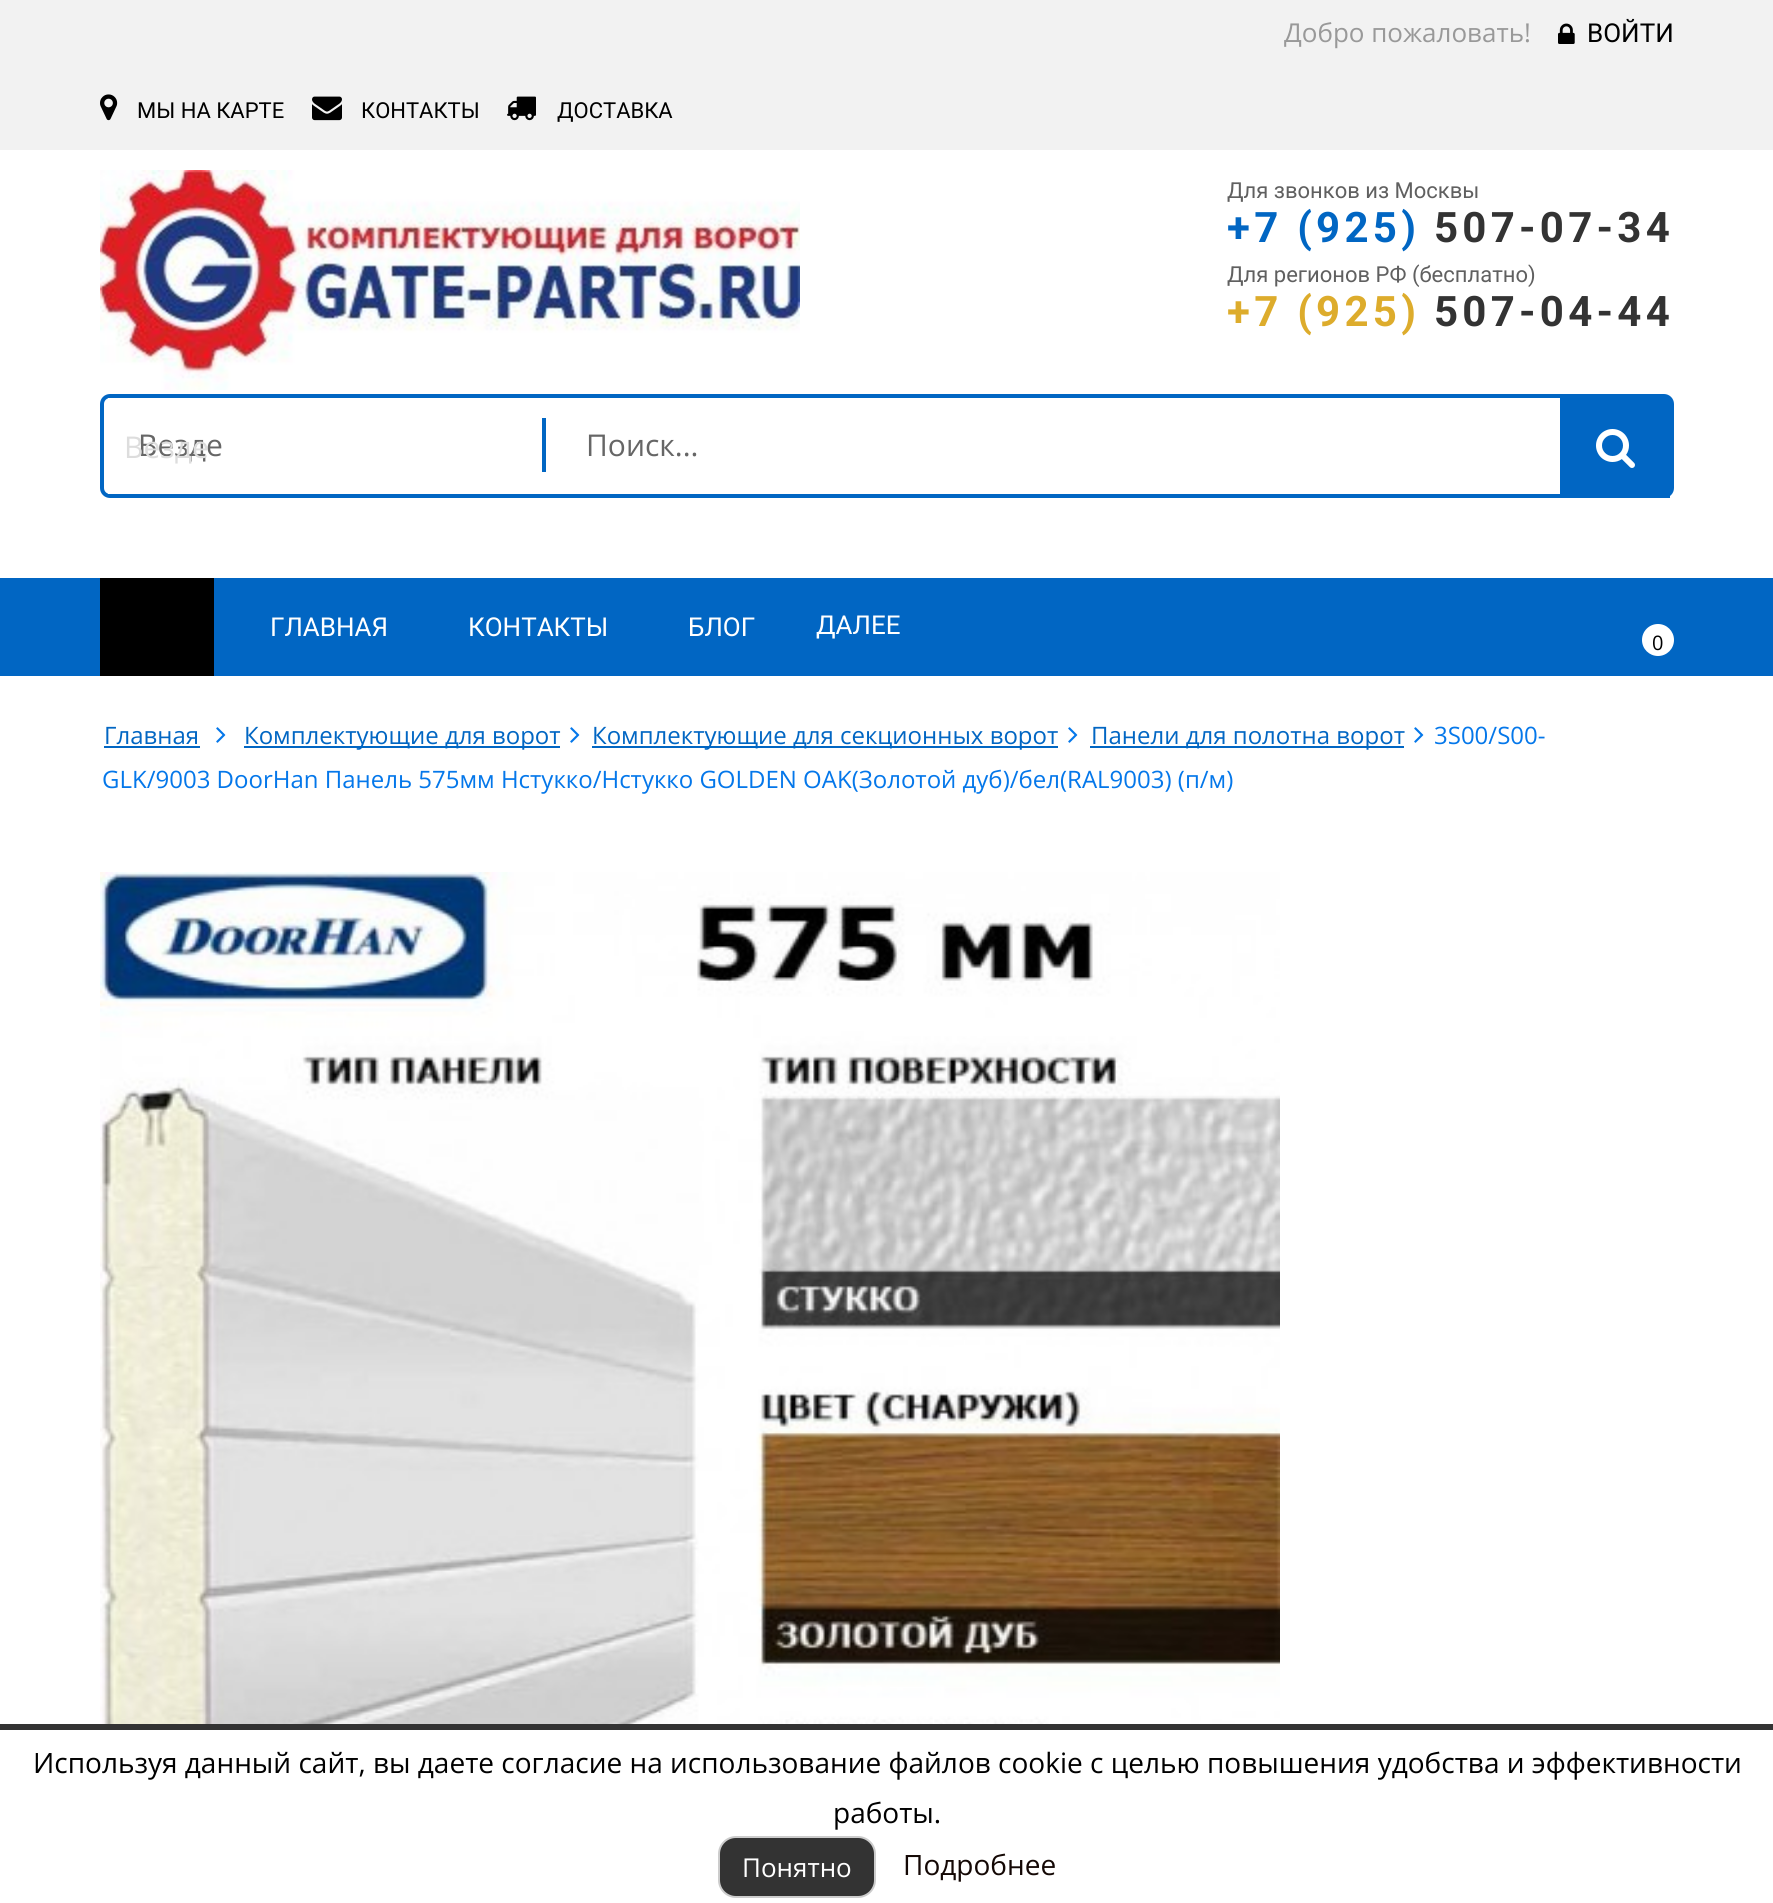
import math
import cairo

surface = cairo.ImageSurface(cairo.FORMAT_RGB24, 1773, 1903)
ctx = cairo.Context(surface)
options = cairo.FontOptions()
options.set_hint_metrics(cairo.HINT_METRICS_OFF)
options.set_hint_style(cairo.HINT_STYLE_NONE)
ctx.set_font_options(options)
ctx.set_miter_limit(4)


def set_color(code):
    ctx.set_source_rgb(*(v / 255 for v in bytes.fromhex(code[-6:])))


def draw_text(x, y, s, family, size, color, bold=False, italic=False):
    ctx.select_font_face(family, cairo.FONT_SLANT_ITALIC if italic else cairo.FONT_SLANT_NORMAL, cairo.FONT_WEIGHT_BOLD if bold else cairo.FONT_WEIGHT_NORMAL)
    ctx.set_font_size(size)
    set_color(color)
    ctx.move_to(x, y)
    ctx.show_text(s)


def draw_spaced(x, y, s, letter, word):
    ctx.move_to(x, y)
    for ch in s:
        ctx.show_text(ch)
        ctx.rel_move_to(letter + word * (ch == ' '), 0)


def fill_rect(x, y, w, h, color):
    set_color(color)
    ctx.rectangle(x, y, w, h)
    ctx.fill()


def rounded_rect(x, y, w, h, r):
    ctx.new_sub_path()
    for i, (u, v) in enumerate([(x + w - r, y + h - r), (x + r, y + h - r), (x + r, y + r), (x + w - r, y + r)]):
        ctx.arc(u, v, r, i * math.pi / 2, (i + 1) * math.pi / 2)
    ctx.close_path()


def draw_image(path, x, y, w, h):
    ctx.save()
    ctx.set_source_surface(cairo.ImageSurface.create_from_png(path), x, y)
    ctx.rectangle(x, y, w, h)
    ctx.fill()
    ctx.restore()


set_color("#ffffff")
ctx.paint()
fill_rect(0, 0, 1773, 150, "#f2f2f2")
draw_text(1284, 42, "Добро пожаловать!", "Open Sans", 26, "#999999")
draw_image("assets/img1.png", 1558, 23, 17, 21)
draw_text(1587, 42, "ВОЙТИ", "Roboto", 26, "#000000")
draw_image("assets/img2.png", 100, 94, 18, 27)
draw_text(137, 118, "МЫ НА КАРТЕ", "Roboto", 22, "#000000")
draw_image("assets/img3.png", 312, 96, 30, 25)
draw_text(361, 118, "КОНТАКТЫ", "Roboto", 22, "#000000")
draw_image("assets/img4.png", 507, 96, 29, 25)
draw_text(557, 118, "ДОСТАВКА", "Roboto", 22, "#000000")
draw_image("assets/img5.png", 100, 170, 700, 220)
draw_text(1227, 198, "Для звонков из Москвы", "Roboto", 22, "#606060")
ctx.select_font_face("Roboto", cairo.FONT_SLANT_NORMAL, cairo.FONT_WEIGHT_BOLD)
ctx.set_font_size(42)
set_color("#0166c3")
draw_spaced(1227, 242, "+7 (925)", 4.25, 0)
set_color("#333333")
draw_spaced(1434, 242, "507-07-34", 4.25, 0)
draw_text(1227, 282, "Для регионов РФ (бесплатно)", "Roboto", 22, "#606060")
ctx.select_font_face("Roboto", cairo.FONT_SLANT_NORMAL, cairo.FONT_WEIGHT_BOLD)
ctx.set_font_size(42)
set_color("#ddac2c")
draw_spaced(1227, 326, "+7 (925)", 4.25, 0)
set_color("#333333")
draw_spaced(1434, 326, "507-04-44", 4.25, 0)
rounded_rect(102, 396, 1570, 100, 8)
set_color("#0166c3")
ctx.set_line_width(4)
ctx.stroke()
fill_rect(108, 398, 2, 96, "#ffffff")
fill_rect(542, 418, 4, 54, "#0166c3")
draw_text(138, 456, "Везде", "Open Sans", 30, "#666666")
draw_text(124, 458, "Везде", "Open Sans", 30, "#dddddd")
draw_text(586, 456, "Поиск...", "Open Sans", 30, "#666666")
fill_rect(1560, 398, 110, 100, "#0166c3")
draw_image("assets/img6.png", 1596, 429, 39, 39)
fill_rect(0, 578, 1773, 98, "#0166c3")
set_color("#ffffff")
ctx.arc(1658, 640, 16, 0, 2 * math.pi)
ctx.fill()
draw_text(1652, 650, "0", "Open Sans", 20, "#000000")
fill_rect(100, 578, 114, 98, "#000000")
draw_text(270, 636, "ГЛАВНАЯ", "Roboto", 26, "#ffffff")
draw_text(468, 636, "КОНТАКТЫ", "Roboto", 26, "#ffffff")
draw_text(688, 636, "БЛОГ", "Roboto", 26, "#ffffff")
draw_text(816, 634, "ДАЛЕЕ", "Roboto", 26, "#ffffff")
fill_rect(244, 746, 316, 2, "#0166c3")
draw_text(244, 744, "Комплектующие для ворот", "Open Sans", 24, "#0166c3")
draw_image("assets/img7.png", 570, 727, 10, 16)
fill_rect(592, 746, 466, 2, "#0166c3")
draw_text(592, 744, "Комплектующие для секционных ворот", "Open Sans", 24, "#0166c3")
draw_image("assets/img7.png", 1068, 727, 10, 16)
fill_rect(1090, 746, 314, 2, "#0166c3")
draw_text(1091, 744, "Панели для полотна ворот", "Open Sans", 24, "#0166c3")
draw_image("assets/img7.png", 1414, 727, 10, 16)
draw_text(1434, 744, "3S00/S00-", "Open Sans", 24, "#0477ea")
draw_text(102, 788, "GLK/9003 DoorHan Панель 575мм Нстукко/Нстукко GOLDEN OAK(Золотой дуб)/бел(RAL9003) (п/м)", "Open Sans", 24, "#0477ea")
draw_text(104, 744, "Главная", "Open Sans", 24, "#0166c3")
fill_rect(104, 746, 96, 2, "#0166c3")
draw_image("assets/img7.png", 216, 727, 10, 16)
draw_image("assets/img8.png", 100, 872, 1180, 852)
fill_rect(0, 1724, 1773, 6, "#333333")
draw_text(33, 1773, "Используя данный сайт, вы даете согласие на использование файлов cookie с целью повышения удобства и эффективности", "Open Sans", 28, "#000000")
draw_text(833, 1823, "работы.", "Open Sans", 28, "#000000")
set_color("#333333")
rounded_rect(719, 1837, 156, 60, 17)
ctx.fill_preserve()
set_color("#cccccc")
ctx.set_line_width(2)
ctx.stroke()
draw_text(742, 1877, "Понятно", "Open Sans", 26, "#ffffff")
draw_text(903, 1875, "Подробнее", "Open Sans", 28, "#140805")
surface.write_to_png("output.png")
